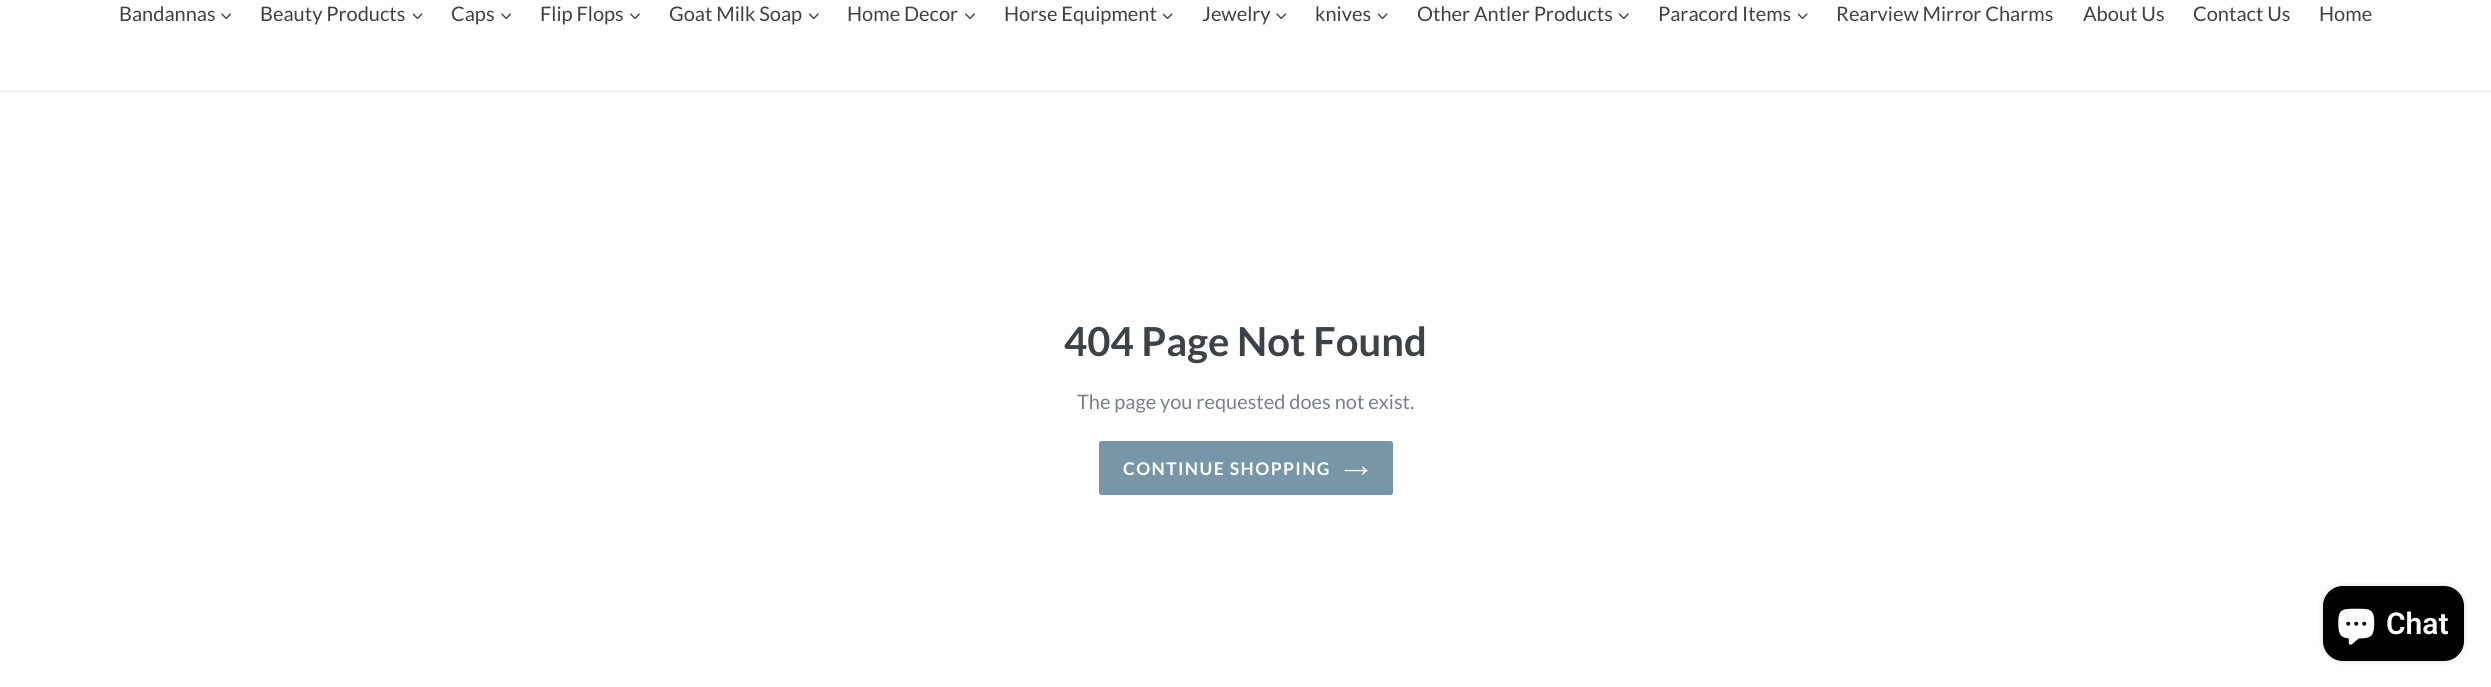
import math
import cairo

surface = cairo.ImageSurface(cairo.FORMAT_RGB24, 2491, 687)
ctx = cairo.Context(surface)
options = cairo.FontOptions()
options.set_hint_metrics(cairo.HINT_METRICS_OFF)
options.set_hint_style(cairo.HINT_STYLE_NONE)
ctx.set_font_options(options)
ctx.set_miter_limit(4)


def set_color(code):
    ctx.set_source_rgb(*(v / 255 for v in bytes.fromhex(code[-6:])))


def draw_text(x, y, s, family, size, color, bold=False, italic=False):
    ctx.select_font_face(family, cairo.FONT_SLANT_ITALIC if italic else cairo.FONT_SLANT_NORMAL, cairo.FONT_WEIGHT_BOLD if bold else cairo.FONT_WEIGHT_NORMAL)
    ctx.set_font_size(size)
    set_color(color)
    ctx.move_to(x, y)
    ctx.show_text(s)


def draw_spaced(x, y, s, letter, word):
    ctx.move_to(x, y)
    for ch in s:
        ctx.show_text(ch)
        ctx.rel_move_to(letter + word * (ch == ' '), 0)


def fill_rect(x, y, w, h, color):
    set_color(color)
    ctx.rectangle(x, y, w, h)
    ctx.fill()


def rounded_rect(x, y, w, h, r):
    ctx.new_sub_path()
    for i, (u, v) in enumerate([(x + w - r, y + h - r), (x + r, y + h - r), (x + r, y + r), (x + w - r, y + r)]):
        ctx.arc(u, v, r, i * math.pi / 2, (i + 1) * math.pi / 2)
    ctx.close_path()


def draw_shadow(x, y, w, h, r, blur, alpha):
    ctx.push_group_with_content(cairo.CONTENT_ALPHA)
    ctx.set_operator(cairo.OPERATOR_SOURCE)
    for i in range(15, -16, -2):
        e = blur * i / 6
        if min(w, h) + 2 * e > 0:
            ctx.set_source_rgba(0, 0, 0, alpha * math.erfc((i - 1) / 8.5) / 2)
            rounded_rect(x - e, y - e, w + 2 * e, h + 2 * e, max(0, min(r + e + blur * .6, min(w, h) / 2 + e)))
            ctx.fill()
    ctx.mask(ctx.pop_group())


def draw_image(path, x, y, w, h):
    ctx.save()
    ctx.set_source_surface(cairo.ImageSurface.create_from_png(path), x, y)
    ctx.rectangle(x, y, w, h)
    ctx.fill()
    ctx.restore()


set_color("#ffffff")
ctx.paint()
fill_rect(0, 91, 2491, 1, "#e8e9eb")
draw_text(119, 21, "Bandannas", "Lato", 20, "#3d4246")
draw_image("assets/img1.png", 221, 13, 10, 7)
draw_text(260, 21, "Beauty Products", "Lato", 20, "#3d4246")
draw_image("assets/img2.png", 413, 13, 10, 7)
draw_text(451, 21, "Caps", "Lato", 20, "#3d4246")
draw_image("assets/img1.png", 501, 13, 10, 7)
draw_text(540, 21, "Flip Flops", "Lato", 20, "#3d4246")
draw_image("assets/img3.png", 630, 13, 10, 6)
draw_text(669, 21, "Goat Milk Soap", "Lato", 20, "#3d4246")
draw_image("assets/img4.png", 809, 13, 10, 7)
draw_text(847, 21, "Home Decor", "Lato", 20, "#3d4246")
draw_image("assets/img3.png", 965, 13, 10, 6)
draw_text(1004, 21, "Horse Equipment", "Lato", 20, "#3d4246")
draw_image("assets/img2.png", 1163, 13, 10, 7)
draw_text(1202, 21, "Jewelry", "Lato", 20, "#3d4246")
draw_image("assets/img1.png", 1276, 13, 10, 7)
draw_text(1315, 21, "knives", "Lato", 20, "#3d4246")
draw_image("assets/img2.png", 1378, 13, 10, 7)
draw_text(1417, 21, "Other Antler Products", "Lato", 20, "#3d4246")
draw_image("assets/img4.png", 1619, 13, 10, 7)
draw_text(1658, 21, "Paracord Items", "Lato", 20, "#3d4246")
draw_image("assets/img2.png", 1798, 13, 10, 7)
draw_text(1836, 21, "Rearview Mirror Charms", "Lato", 20, "#3d4246")
draw_text(2083, 21, "About Us", "Lato", 20, "#3d4246")
draw_text(2193, 21, "Contact Us", "Lato", 20, "#3d4246")
draw_text(2319, 21, "Home", "Lato", 20, "#3d4246")
draw_text(1064, 356, "404 Page Not Found", "Lato", 40, "#3d4246", bold=True)
draw_text(1077, 409, "The page you requested does not exist.", "Lato", 20, "#788188")
set_color("#7796a8")
rounded_rect(1099, 441, 294, 54, 2.5)
ctx.fill()
ctx.select_font_face("Lato", cairo.FONT_SLANT_NORMAL, cairo.FONT_WEIGHT_BOLD)
ctx.set_font_size(17.5)
set_color("#ffffff")
draw_spaced(1123, 475, "CONTINUE SHOPPING", 1.4, 0)
draw_image("assets/img5.png", 1344, 466, 24, 9)
set_color("#000000")
draw_shadow(2323, 586, 141, 75, 20, 3, 0.15)
set_color("#000000")
rounded_rect(2323, 586, 141, 75, 20)
ctx.fill()
draw_image("assets/img6.png", 2338, 608, 37, 37)
draw_text(2386, 634, "Chat", "Roboto SemiBold", 30, "#ffffff")
surface.write_to_png("output.png")
